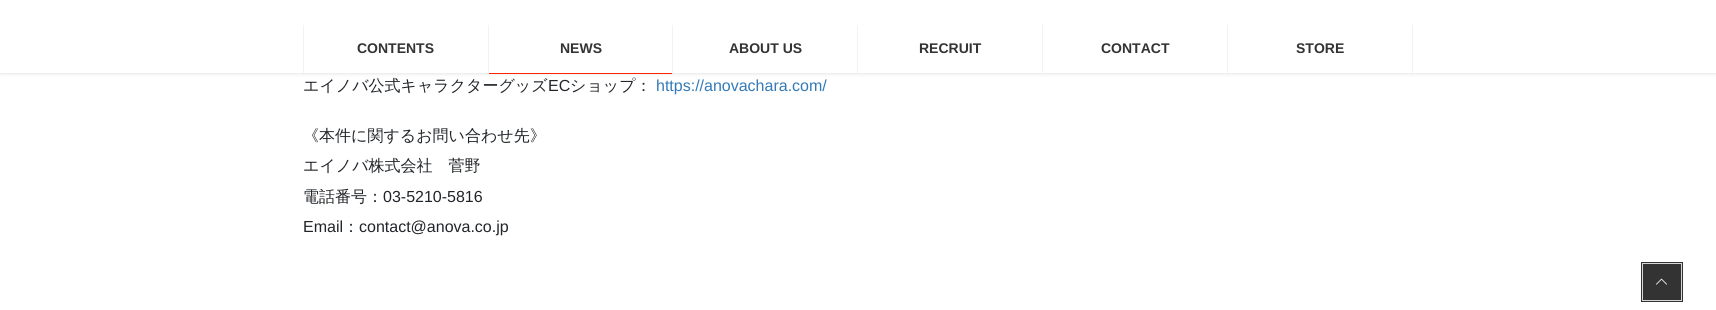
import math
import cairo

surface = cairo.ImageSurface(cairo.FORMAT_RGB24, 1716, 310)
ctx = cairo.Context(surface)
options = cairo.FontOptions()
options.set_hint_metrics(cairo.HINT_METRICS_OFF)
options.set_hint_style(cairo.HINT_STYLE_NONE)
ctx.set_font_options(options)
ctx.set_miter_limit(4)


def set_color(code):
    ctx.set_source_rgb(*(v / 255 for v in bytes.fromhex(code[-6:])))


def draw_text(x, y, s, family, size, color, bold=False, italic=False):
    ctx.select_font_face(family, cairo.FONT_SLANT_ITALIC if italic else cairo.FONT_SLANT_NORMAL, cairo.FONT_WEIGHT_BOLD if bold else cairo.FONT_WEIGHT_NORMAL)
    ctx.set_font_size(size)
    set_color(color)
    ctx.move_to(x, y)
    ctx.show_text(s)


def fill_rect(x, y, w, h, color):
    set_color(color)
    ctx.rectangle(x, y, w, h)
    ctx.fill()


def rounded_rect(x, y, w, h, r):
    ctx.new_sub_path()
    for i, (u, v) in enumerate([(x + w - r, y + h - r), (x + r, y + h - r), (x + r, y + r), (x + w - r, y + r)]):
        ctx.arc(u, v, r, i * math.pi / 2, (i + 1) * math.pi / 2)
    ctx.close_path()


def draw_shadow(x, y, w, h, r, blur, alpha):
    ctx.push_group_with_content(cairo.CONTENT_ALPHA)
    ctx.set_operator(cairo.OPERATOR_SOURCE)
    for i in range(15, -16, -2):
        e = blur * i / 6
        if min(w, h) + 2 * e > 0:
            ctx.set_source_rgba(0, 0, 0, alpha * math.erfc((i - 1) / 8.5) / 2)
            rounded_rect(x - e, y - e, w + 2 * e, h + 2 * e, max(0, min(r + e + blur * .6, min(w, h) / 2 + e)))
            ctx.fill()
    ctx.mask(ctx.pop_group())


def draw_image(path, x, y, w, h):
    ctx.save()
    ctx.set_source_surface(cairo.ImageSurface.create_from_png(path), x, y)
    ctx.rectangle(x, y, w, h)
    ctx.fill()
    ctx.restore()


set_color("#ffffff")
ctx.paint()
set_color("#000000")
draw_shadow(0, 1, 1716, 73, 0, 1.5, 0.1)
fill_rect(0, 0, 1716, 73, "#ffffff")
fill_rect(488, 25, 1, 48, "#f2f2f2")
fill_rect(303, 25, 1, 48, "#f2f2f2")
draw_text(357, 53, "CONTENTS", "Liberation Sans", 14, "#333333", bold=True)
fill_rect(672, 25, 1, 48, "#f2f2f2")
draw_text(560, 53, "NEWS", "Liberation Sans", 14, "#333333", bold=True)
fill_rect(489, 73, 183, 1, "#fb2501")
fill_rect(857, 25, 1, 48, "#f2f2f2")
draw_text(729, 53, "ABOUT US", "Liberation Sans", 14, "#333333", bold=True)
fill_rect(1042, 25, 1, 48, "#f2f2f2")
draw_text(919, 53, "RECRUIT", "Liberation Sans", 14, "#333333", bold=True)
fill_rect(1227, 25, 1, 48, "#f2f2f2")
draw_text(1101, 53, "CONTACT", "Liberation Sans", 14, "#333333", bold=True)
fill_rect(1412, 25, 1, 48, "#f2f2f2")
draw_text(1296, 53, "STORE", "Liberation Sans", 14, "#333333", bold=True)
draw_text(303, 91, "エイノバ公式キャラクターグッズ", "WenQuanYi Zen Hei Medium", 16, "#212529")
draw_text(548, 91, "EC", "Liberation Sans", 16, "#212529")
draw_text(570, 91, "ショップ：", "WenQuanYi Zen Hei Medium", 16, "#212529")
draw_text(656, 91, "https://anovachara.com/", "Liberation Sans", 16, "#337ab7")
draw_text(303, 141, "《本件に関するお問い合わせ先》", "WenQuanYi Zen Hei Medium", 16, "#212529")
draw_text(303, 171, "エイノバ株式会社　菅野", "WenQuanYi Zen Hei Medium", 16, "#212529")
draw_text(303, 202, "電話番号：", "WenQuanYi Zen Hei Medium", 16, "#212529")
draw_text(383, 202, "03-5210-5816", "Liberation Sans", 16, "#212529")
draw_text(303, 232, "Email", "Liberation Sans", 16, "#212529")
draw_text(343, 232, "：", "WenQuanYi Zen Hei Medium", 16, "#212529")
draw_text(359, 232, "contact@anova.co.jp", "Liberation Sans", 16, "#212529")
fill_rect(1643, 264, 38, 36, "#333333")
draw_image("assets/img1.png", 1656, 278, 11, 7)
ctx.rectangle(1642.5, 263.5, 39, 37)
set_color("#d6d6d6")
ctx.set_line_width(1)
ctx.stroke()
ctx.rectangle(1641.5, 262.5, 41, 39)
set_color("#333333")
ctx.stroke()
surface.write_to_png("output.png")
